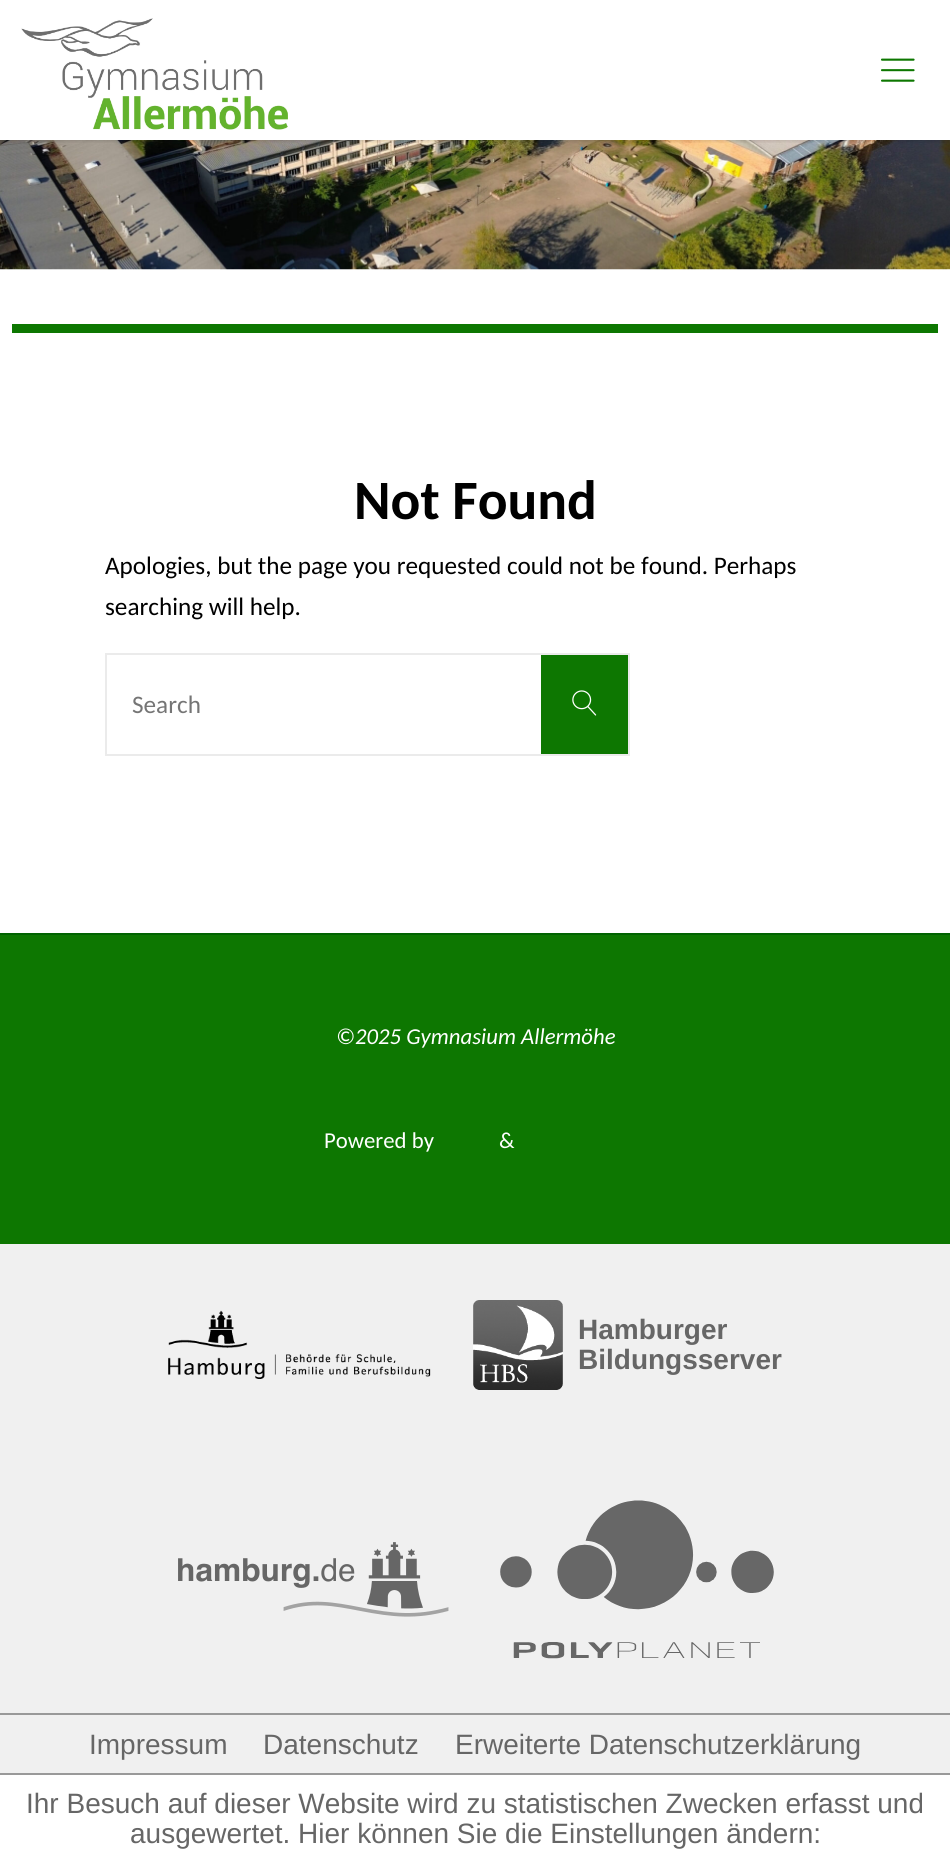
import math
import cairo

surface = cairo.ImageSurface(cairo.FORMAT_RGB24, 950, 1863)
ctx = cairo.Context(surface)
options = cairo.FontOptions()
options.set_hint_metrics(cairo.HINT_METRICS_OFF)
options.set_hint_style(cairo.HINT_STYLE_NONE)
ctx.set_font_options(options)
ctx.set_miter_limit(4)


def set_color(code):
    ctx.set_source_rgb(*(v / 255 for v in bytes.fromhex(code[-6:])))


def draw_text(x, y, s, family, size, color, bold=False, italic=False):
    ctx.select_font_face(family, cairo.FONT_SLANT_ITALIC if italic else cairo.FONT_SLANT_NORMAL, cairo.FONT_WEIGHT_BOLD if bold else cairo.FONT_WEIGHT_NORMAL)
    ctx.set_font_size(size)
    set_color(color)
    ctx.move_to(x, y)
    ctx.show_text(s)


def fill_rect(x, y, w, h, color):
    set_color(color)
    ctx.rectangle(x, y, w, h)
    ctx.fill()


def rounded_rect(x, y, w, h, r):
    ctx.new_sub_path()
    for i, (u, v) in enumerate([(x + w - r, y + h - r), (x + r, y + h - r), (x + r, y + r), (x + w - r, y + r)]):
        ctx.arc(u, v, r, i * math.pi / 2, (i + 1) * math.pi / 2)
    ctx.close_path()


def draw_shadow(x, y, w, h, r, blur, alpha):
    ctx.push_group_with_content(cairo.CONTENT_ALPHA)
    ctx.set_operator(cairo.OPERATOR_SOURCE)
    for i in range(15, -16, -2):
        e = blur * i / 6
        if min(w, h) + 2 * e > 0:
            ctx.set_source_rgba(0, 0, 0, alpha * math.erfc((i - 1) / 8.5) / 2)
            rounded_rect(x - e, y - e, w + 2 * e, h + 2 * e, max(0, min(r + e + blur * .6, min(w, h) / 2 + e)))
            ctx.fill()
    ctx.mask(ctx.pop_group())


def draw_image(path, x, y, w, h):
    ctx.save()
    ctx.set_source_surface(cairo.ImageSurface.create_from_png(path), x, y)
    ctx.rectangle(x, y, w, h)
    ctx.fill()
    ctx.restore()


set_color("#ffffff")
ctx.paint()
draw_image("assets/img3.png", 0, 140, 950, 130)
ctx.save()
ctx.rectangle(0, 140, 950, 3)
ctx.clip()
set_color("#000000")
draw_shadow(0, 0, 950, 140, 0, 2.5, 0.2)
ctx.restore()
draw_image("assets/img1.png", 21, 18, 267, 112)
draw_image("assets/img2.png", 881, 58, 34, 24)
fill_rect(12, 324, 926, 9, "#0d7701")
draw_text(354, 519, "Not Found", "Carlito", 55.5, "#000000", bold=True)
draw_text(105, 574, "Apologies, but the page you requested could not be found. Perhaps", "Carlito", 25.2, "#000000")
draw_text(105, 615, "searching will help.", "Carlito", 25.2, "#000000")
ctx.rectangle(106, 654, 523, 101)
set_color("#ebebeb")
ctx.stroke()
fill_rect(541, 655, 87, 99, "#0d7701")
draw_text(132, 713, "Search", "Carlito", 25.2, "#757575")
draw_image("assets/img4.png", 572, 690, 25, 26)
fill_rect(0, 935, 950, 309, "#0d7701")
fill_rect(0, 933, 950, 2, "#006300")
draw_text(336, 1044, "©2025 Gymnasium Allermöhe", "Carlito", 22.75, "#ffffff", italic=True)
draw_text(324, 1148, "Powered by", "Carlito", 22.75, "#ffffff")
draw_text(499, 1148, "&", "Carlito", 22.75, "#ffffff")
fill_rect(0, 1244, 950, 529, "#f0f0f0")
draw_image("assets/img5.png", 168, 1310, 263, 69)
draw_image("assets/img6.png", 473, 1300, 90, 90)
draw_text(578, 1339, "Hamburger", "Liberation Sans", 28, "#666666", bold=True)
draw_text(578, 1369, "Bildungsserver", "Liberation Sans", 28, "#666666", bold=True)
draw_image("assets/img7.png", 178, 1542, 271, 75)
draw_image("assets/img8.png", 500, 1500, 274, 159)
fill_rect(0, 1713, 950, 2, "#999999")
fill_rect(0, 1773, 950, 2, "#999999")
draw_text(89, 1754, "Impressum", "Liberation Sans", 28, "#666666")
draw_text(263, 1754, "Datenschutz", "Liberation Sans", 28, "#666666")
draw_text(455, 1754, "Erweiterte Datenschutzerklärung", "Liberation Sans", 28, "#666666")
draw_text(26, 1813, "Ihr Besuch auf dieser Website wird zu statistischen Zwecken erfasst und", "Liberation Sans", 28, "#666666")
draw_text(130, 1843, "ausgewertet. Hier können Sie die Einstellungen ändern:", "Liberation Sans", 28, "#666666")
surface.write_to_png("output.png")
